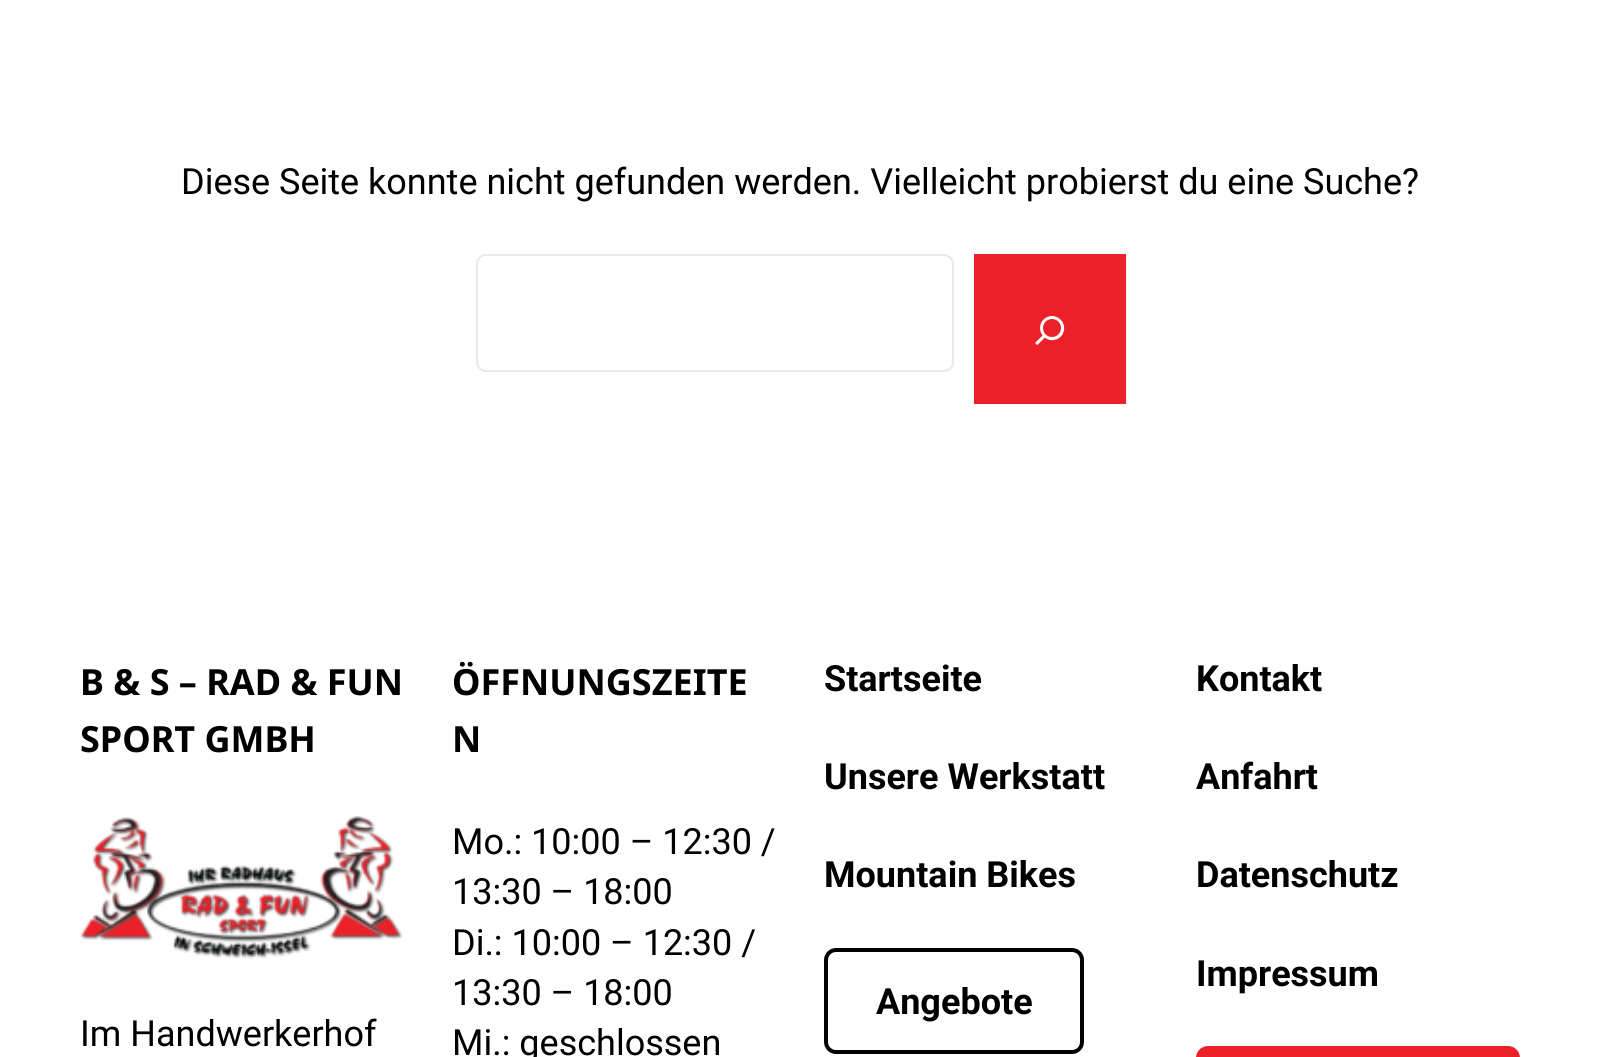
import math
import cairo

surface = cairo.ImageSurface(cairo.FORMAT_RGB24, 1600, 1057)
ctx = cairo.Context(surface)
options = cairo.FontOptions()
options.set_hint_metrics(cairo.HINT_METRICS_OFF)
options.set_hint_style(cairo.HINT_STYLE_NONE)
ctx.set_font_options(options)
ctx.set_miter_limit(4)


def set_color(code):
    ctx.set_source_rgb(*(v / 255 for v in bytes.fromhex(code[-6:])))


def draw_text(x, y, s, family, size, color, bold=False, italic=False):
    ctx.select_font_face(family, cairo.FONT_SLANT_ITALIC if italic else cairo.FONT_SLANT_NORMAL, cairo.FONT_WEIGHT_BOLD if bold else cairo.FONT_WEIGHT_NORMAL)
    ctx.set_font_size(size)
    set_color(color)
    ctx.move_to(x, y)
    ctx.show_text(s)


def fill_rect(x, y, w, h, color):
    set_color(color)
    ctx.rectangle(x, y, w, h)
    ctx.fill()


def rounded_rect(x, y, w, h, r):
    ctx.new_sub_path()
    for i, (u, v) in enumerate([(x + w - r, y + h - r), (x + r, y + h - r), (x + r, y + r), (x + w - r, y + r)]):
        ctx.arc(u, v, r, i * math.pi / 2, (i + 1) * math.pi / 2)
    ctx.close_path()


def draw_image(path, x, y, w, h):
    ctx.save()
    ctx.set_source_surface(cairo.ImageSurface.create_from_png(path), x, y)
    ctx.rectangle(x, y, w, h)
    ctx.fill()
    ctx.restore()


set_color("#ffffff")
ctx.paint()
draw_text(181, 194, "Diese Seite konnte nicht gefunden werden. Vielleicht probierst du eine Suche?", "Roboto", 36, "#000000")
rounded_rect(477, 255, 476, 116, 9)
set_color("#e9e9e9")
ctx.stroke()
fill_rect(974, 254, 152, 150, "#ec2028")
draw_image("assets/img1.png", 1035, 316, 30, 30)
draw_text(80, 695, "B & S – RAD & FUN", "Noto Sans", 36, "#000000", bold=True)
draw_text(80, 752, "SPORT GMBH", "Noto Sans", 36, "#000000", bold=True)
draw_image("assets/img2.png", 80, 816, 323, 143)
draw_text(80, 1046, "Im Handwerkerhof", "Roboto", 36, "#000000")
draw_text(452, 695, "ÖFFNUNGSZEITE", "Noto Sans", 36, "#000000", bold=True)
draw_text(452, 752, "N", "Noto Sans", 36, "#000000", bold=True)
draw_text(452, 854, "Mo.: 10:00 – 12:30 /", "Roboto", 36, "#000000")
draw_text(452, 904, "13:30 – 18:00", "Roboto", 36, "#000000")
draw_text(452, 955, "Di.: 10:00 – 12:30 /", "Roboto", 36, "#000000")
draw_text(452, 1005, "13:30 – 18:00", "Roboto", 36, "#000000")
draw_text(452, 1055, "Mi.: geschlossen", "Roboto", 36, "#000000")
draw_text(824, 691, "Startseite", "Roboto", 36, "#000000", bold=True)
draw_text(824, 789, "Unsere Werkstatt", "Roboto", 36, "#000000", bold=True)
draw_text(824, 887, "Mountain Bikes", "Roboto", 36, "#000000", bold=True)
rounded_rect(826, 950, 256, 102, 10)
ctx.set_line_width(4)
ctx.stroke()
draw_text(876, 1014, "Angebote", "Roboto", 36, "#000000", bold=True)
draw_text(1196, 691, "Kontakt", "Roboto", 36, "#000000", bold=True)
draw_text(1196, 789, "Anfahrt", "Roboto", 36, "#000000", bold=True)
draw_text(1196, 887, "Datenschutz", "Roboto", 36, "#000000", bold=True)
draw_text(1196, 986, "Impressum", "Roboto", 36, "#000000", bold=True)
set_color("#ec2028")
rounded_rect(1196, 1046, 324, 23, 12)
ctx.fill()
surface.write_to_png("output.png")
